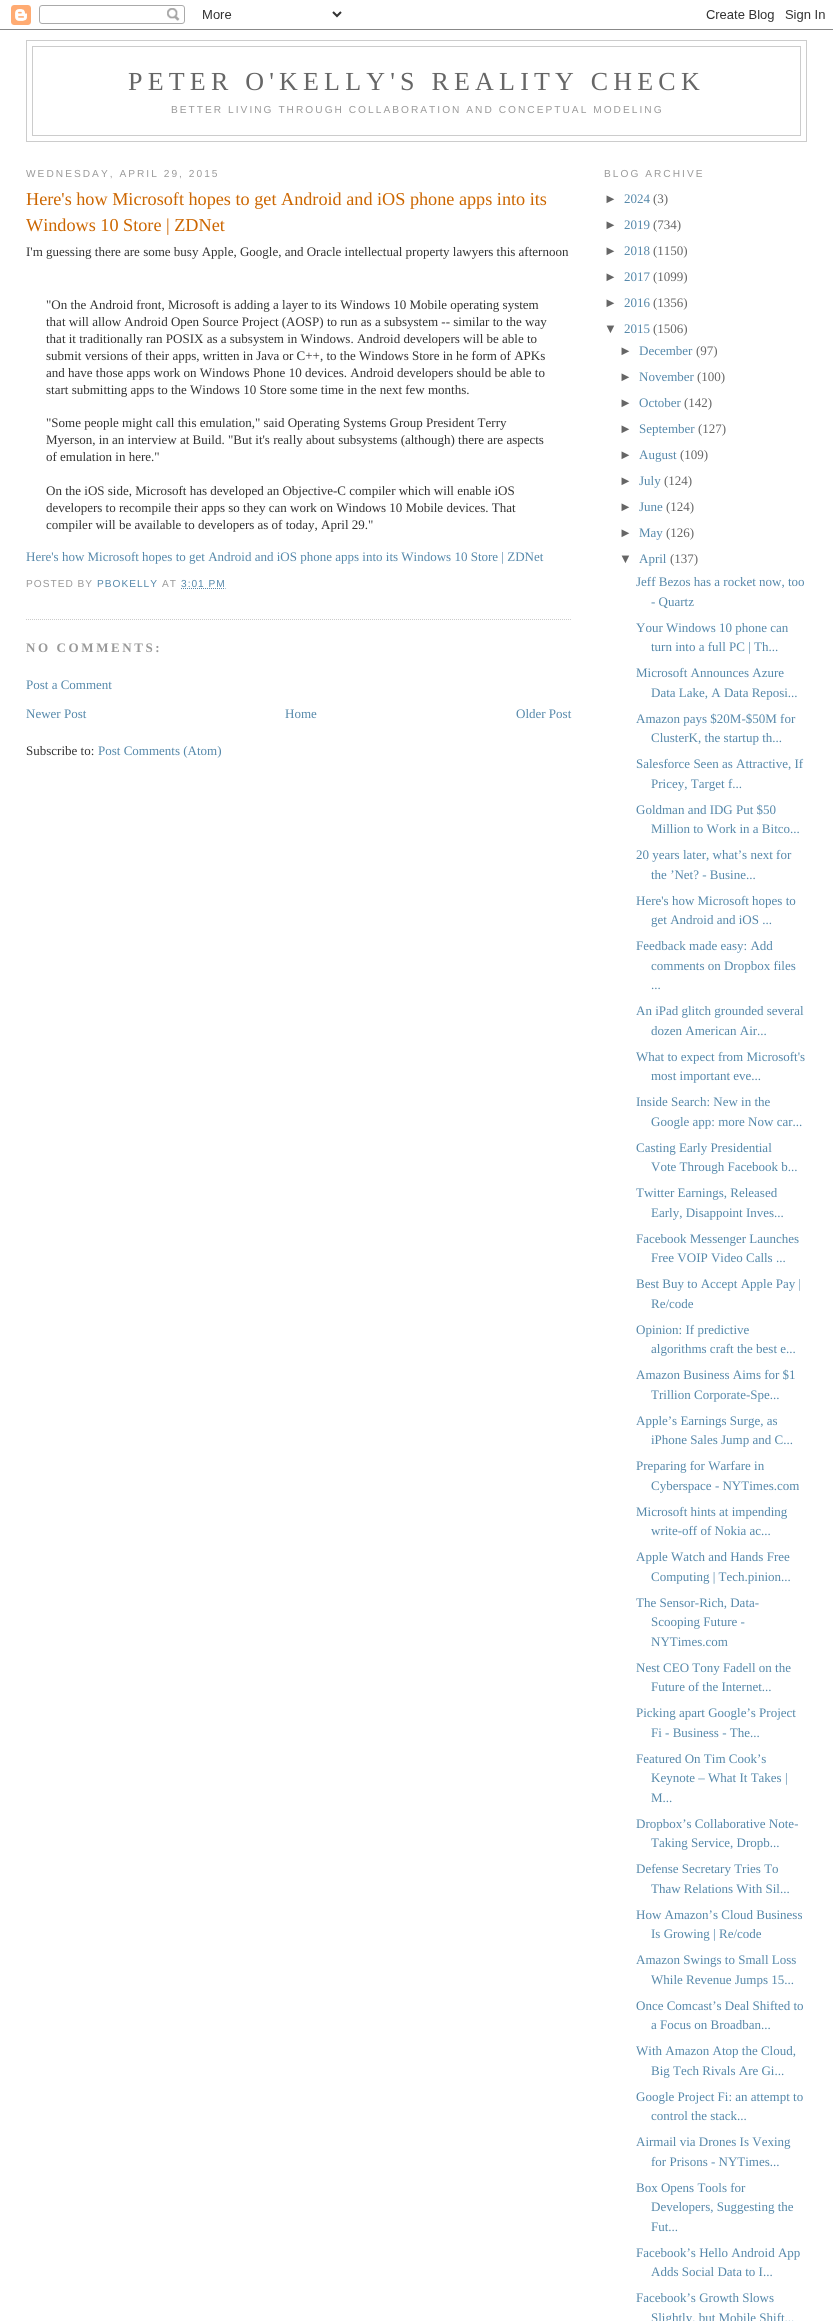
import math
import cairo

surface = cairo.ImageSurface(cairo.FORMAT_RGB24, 833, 2321)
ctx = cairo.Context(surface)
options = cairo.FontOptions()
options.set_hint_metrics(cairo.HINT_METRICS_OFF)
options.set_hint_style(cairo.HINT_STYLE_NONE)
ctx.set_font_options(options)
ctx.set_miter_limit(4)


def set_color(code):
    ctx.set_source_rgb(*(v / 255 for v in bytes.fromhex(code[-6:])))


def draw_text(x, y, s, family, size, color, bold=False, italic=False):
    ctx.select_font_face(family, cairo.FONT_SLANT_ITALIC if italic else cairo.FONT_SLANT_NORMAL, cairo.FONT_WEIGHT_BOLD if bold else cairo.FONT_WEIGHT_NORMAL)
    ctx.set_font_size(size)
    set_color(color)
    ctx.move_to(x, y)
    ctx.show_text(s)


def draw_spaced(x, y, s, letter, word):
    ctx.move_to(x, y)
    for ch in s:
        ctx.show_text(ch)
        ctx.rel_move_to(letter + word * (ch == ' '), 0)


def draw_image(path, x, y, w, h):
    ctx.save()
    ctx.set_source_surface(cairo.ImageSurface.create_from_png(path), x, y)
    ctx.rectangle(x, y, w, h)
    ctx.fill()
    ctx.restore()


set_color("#ffffff")
ctx.paint()
draw_image("assets/img1.png", 0, 5, 833, 25)
ctx.rectangle(26.5, 40.5, 780, 101)
set_color("#cccccc")
ctx.set_line_width(1)
ctx.stroke()
ctx.rectangle(32.5, 46.5, 768, 89)
ctx.stroke()
ctx.select_font_face("Liberation Serif")
ctx.set_font_size(26)
set_color("#666666")
draw_spaced(128, 90, "PETER O'KELLY'S REALITY CHECK", 5.2, 0)
ctx.select_font_face("Liberation Sans")
ctx.set_font_size(10.15)
set_color("#999999")
draw_spaced(171, 113, "BETTER LIVING THROUGH COLLABORATION AND CONCEPTUAL MODELING", 2.03, 0)
draw_spaced(26, 177, "WEDNESDAY, APRIL 29, 2015", 2.03, 0)
ctx.new_path()
ctx.move_to(26, 619.5)
ctx.line_to(571, 619.5)
set_color("#cccccc")
ctx.set_dash([1, 1])
ctx.stroke()
draw_text(26, 205, "Here's how Microsoft hopes to get Android and iOS phone apps into its", "Liberation Serif", 18.2, "#cc6600")
draw_text(26, 231, "Windows 10 Store | ZDNet", "Liberation Serif", 18.2, "#cc6600")
draw_text(26, 256, "I'm guessing there are some busy Apple, Google, and Oracle intellectual property lawyers this afternoon", "Liberation Serif", 13, "#333333")
draw_text(46, 309, "\"On the Android front, Microsoft is adding a layer to its Windows 10 Mobile operating system", "Liberation Serif", 13, "#333333")
draw_text(46, 326, "that will allow Android Open Source Project (AOSP) to run as a subsystem -- similar to the way", "Liberation Serif", 13, "#333333")
draw_text(46, 343, "that it traditionally ran POSIX as a subsystem in Windows. Android developers will be able to", "Liberation Serif", 13, "#333333")
draw_text(46, 360, "submit versions of their apps, written in Java or C++, to the Windows Store in he form of APKs", "Liberation Serif", 13, "#333333")
draw_text(46, 377, "and have those apps work on Windows Phone 10 devices. Android developers should be able to", "Liberation Serif", 13, "#333333")
draw_text(46, 394, "start submitting apps to the Windows 10 Store some time in the next few months.", "Liberation Serif", 13, "#333333")
draw_text(46, 427, "\"Some people might call this emulation,\" said Operating Systems Group President Terry", "Liberation Serif", 13, "#333333")
draw_text(46, 444, "Myerson, in an interview at Build. \"But it's really about subsystems (although) there are aspects", "Liberation Serif", 13, "#333333")
draw_text(46, 461, "of emulation in here.\"", "Liberation Serif", 13, "#333333")
draw_text(46, 495, "On the iOS side, Microsoft has developed an Objective-C compiler which will enable iOS", "Liberation Serif", 13, "#333333")
draw_text(46, 512, "developers to recompile their apps so they can work on Windows 10 Mobile devices. That", "Liberation Serif", 13, "#333333")
draw_text(46, 529, "compiler will be available to developers as of today, April 29.\"", "Liberation Serif", 13, "#333333")
draw_text(26, 561, "Here's how Microsoft hopes to get Android and iOS phone apps into its Windows 10 Store | ZDNet", "Liberation Serif", 13, "#5588aa")
ctx.select_font_face("Liberation Sans")
ctx.set_font_size(10.15)
set_color("#999999")
draw_spaced(26, 587, "POSTED BY", 1, 0)
set_color("#5588aa")
draw_spaced(97, 587, "PBOKELLY", 1, 0)
set_color("#999999")
draw_spaced(162, 587, "AT", 1, 0)
set_color("#5588aa")
draw_spaced(181, 587, "3:01 PM", 1, 0)
ctx.new_path()
ctx.move_to(181, 588.5)
ctx.line_to(225.5, 588.5)
ctx.stroke()
ctx.select_font_face("Liberation Serif", cairo.FONT_SLANT_NORMAL, cairo.FONT_WEIGHT_BOLD)
ctx.set_font_size(13)
set_color("#999999")
draw_spaced(26, 652, "NO COMMENTS:", 2.6, 0)
draw_text(26, 689, "Post a Comment", "Liberation Serif", 13, "#5588aa")
draw_text(26, 718, "Newer Post", "Liberation Serif", 13, "#5588aa")
draw_text(285, 718, "Home", "Liberation Serif", 13, "#5588aa")
draw_text(516, 718, "Older Post", "Liberation Serif", 13, "#5588aa")
draw_text(26, 755, "Subscribe to:", "Liberation Serif", 13, "#333333")
draw_text(98, 755, "Post Comments (Atom)", "Liberation Serif", 13, "#5588aa")
ctx.select_font_face("Liberation Sans")
ctx.set_font_size(10.15)
set_color("#999999")
draw_spaced(604, 177, "BLOG ARCHIVE", 2.03, 0)
draw_text(604, 203, "►", "Liberation Sans", 13, "#666666")
draw_text(624, 203, "2024", "Liberation Serif", 13, "#5588aa")
draw_text(653, 203, "(3)", "Liberation Serif", 13, "#666666")
draw_text(604, 229, "►", "Liberation Sans", 13, "#666666")
draw_text(624, 229, "2019", "Liberation Serif", 13, "#5588aa")
draw_text(653, 229, "(734)", "Liberation Serif", 13, "#666666")
draw_text(604, 255, "►", "Liberation Sans", 13, "#666666")
draw_text(624, 255, "2018", "Liberation Serif", 13, "#5588aa")
draw_text(653, 255, "(1150)", "Liberation Serif", 13, "#666666")
draw_text(604, 281, "►", "Liberation Sans", 13, "#666666")
draw_text(624, 281, "2017", "Liberation Serif", 13, "#5588aa")
draw_text(653, 281, "(1099)", "Liberation Serif", 13, "#666666")
draw_text(604, 307, "►", "Liberation Sans", 13, "#666666")
draw_text(624, 307, "2016", "Liberation Serif", 13, "#5588aa")
draw_text(653, 307, "(1356)", "Liberation Serif", 13, "#666666")
draw_text(604, 333, "▼", "Liberation Sans", 13, "#666666")
draw_text(624, 333, "2015", "Liberation Serif", 13, "#5588aa")
draw_text(653, 333, "(1506)", "Liberation Serif", 13, "#666666")
draw_text(619, 355, "►", "Liberation Sans", 13, "#666666")
draw_text(639, 355, "December", "Liberation Serif", 13, "#5588aa")
draw_text(696, 355, "(97)", "Liberation Serif", 13, "#666666")
draw_text(619, 381, "►", "Liberation Sans", 13, "#666666")
draw_text(639, 381, "November", "Liberation Serif", 13, "#5588aa")
draw_text(697, 381, "(100)", "Liberation Serif", 13, "#666666")
draw_text(619, 407, "►", "Liberation Sans", 13, "#666666")
draw_text(639, 407, "October", "Liberation Serif", 13, "#5588aa")
draw_text(684, 407, "(142)", "Liberation Serif", 13, "#666666")
draw_text(619, 433, "►", "Liberation Sans", 13, "#666666")
draw_text(639, 433, "September", "Liberation Serif", 13, "#5588aa")
draw_text(698, 433, "(127)", "Liberation Serif", 13, "#666666")
draw_text(619, 459, "►", "Liberation Sans", 13, "#666666")
draw_text(639, 459, "August", "Liberation Serif", 13, "#5588aa")
draw_text(680, 459, "(109)", "Liberation Serif", 13, "#666666")
draw_text(619, 485, "►", "Liberation Sans", 13, "#666666")
draw_text(639, 485, "July", "Liberation Serif", 13, "#5588aa")
draw_text(664, 485, "(124)", "Liberation Serif", 13, "#666666")
draw_text(619, 511, "►", "Liberation Sans", 13, "#666666")
draw_text(639, 511, "June", "Liberation Serif", 13, "#5588aa")
draw_text(666, 511, "(124)", "Liberation Serif", 13, "#666666")
draw_text(619, 537, "►", "Liberation Sans", 13, "#666666")
draw_text(639, 537, "May", "Liberation Serif", 13, "#5588aa")
draw_text(666, 537, "(126)", "Liberation Serif", 13, "#666666")
draw_text(619, 563, "▼", "Liberation Sans", 13, "#666666")
draw_text(639, 563, "April", "Liberation Serif", 13, "#5588aa")
draw_text(670, 563, "(137)", "Liberation Serif", 13, "#666666")
draw_text(636, 586, "Jeff Bezos has a rocket now, too", "Liberation Serif", 13, "#5588aa")
draw_text(651, 606, "- Quartz", "Liberation Serif", 13, "#5588aa")
draw_text(636, 632, "Your Windows 10 phone can", "Liberation Serif", 13, "#5588aa")
draw_text(651, 651, "turn into a full PC | Th...", "Liberation Serif", 13, "#5588aa")
draw_text(636, 677, "Microsoft Announces Azure", "Liberation Serif", 13, "#5588aa")
draw_text(651, 697, "Data Lake, A Data Reposi...", "Liberation Serif", 13, "#5588aa")
draw_text(636, 723, "Amazon pays $20M-$50M for", "Liberation Serif", 13, "#5588aa")
draw_text(651, 742, "ClusterK, the startup th...", "Liberation Serif", 13, "#5588aa")
draw_text(636, 768, "Salesforce Seen as Attractive, If", "Liberation Serif", 13, "#5588aa")
draw_text(651, 788, "Pricey, Target f...", "Liberation Serif", 13, "#5588aa")
draw_text(636, 814, "Goldman and IDG Put $50", "Liberation Serif", 13, "#5588aa")
draw_text(651, 833, "Million to Work in a Bitco...", "Liberation Serif", 13, "#5588aa")
draw_text(636, 859, "20 years later, what’s next for", "Liberation Serif", 13, "#5588aa")
draw_text(651, 879, "the ’Net? - Busine...", "Liberation Serif", 13, "#5588aa")
draw_text(636, 905, "Here's how Microsoft hopes to", "Liberation Serif", 13, "#5588aa")
draw_text(651, 924, "get Android and iOS ...", "Liberation Serif", 13, "#5588aa")
draw_text(636, 950, "Feedback made easy: Add", "Liberation Serif", 13, "#5588aa")
draw_text(651, 970, "comments on Dropbox files", "Liberation Serif", 13, "#5588aa")
draw_text(651, 989, "...", "Liberation Serif", 13, "#5588aa")
draw_text(636, 1015, "An iPad glitch grounded several", "Liberation Serif", 13, "#5588aa")
draw_text(651, 1035, "dozen American Air...", "Liberation Serif", 13, "#5588aa")
draw_text(636, 1061, "What to expect from Microsoft's", "Liberation Serif", 13, "#5588aa")
draw_text(651, 1080, "most important eve...", "Liberation Serif", 13, "#5588aa")
draw_text(636, 1106, "Inside Search: New in the", "Liberation Serif", 13, "#5588aa")
draw_text(651, 1126, "Google app: more Now car...", "Liberation Serif", 13, "#5588aa")
draw_text(636, 1152, "Casting Early Presidential", "Liberation Serif", 13, "#5588aa")
draw_text(651, 1171, "Vote Through Facebook b...", "Liberation Serif", 13, "#5588aa")
draw_text(636, 1197, "Twitter Earnings, Released", "Liberation Serif", 13, "#5588aa")
draw_text(651, 1217, "Early, Disappoint Inves...", "Liberation Serif", 13, "#5588aa")
draw_text(636, 1243, "Facebook Messenger Launches", "Liberation Serif", 13, "#5588aa")
draw_text(651, 1262, "Free VOIP Video Calls ...", "Liberation Serif", 13, "#5588aa")
draw_text(636, 1288, "Best Buy to Accept Apple Pay |", "Liberation Serif", 13, "#5588aa")
draw_text(651, 1308, "Re/code", "Liberation Serif", 13, "#5588aa")
draw_text(636, 1334, "Opinion: If predictive", "Liberation Serif", 13, "#5588aa")
draw_text(651, 1353, "algorithms craft the best e...", "Liberation Serif", 13, "#5588aa")
draw_text(636, 1379, "Amazon Business Aims for $1", "Liberation Serif", 13, "#5588aa")
draw_text(651, 1399, "Trillion Corporate-Spe...", "Liberation Serif", 13, "#5588aa")
draw_text(636, 1425, "Apple’s Earnings Surge, as", "Liberation Serif", 13, "#5588aa")
draw_text(651, 1444, "iPhone Sales Jump and C...", "Liberation Serif", 13, "#5588aa")
draw_text(636, 1470, "Preparing for Warfare in", "Liberation Serif", 13, "#5588aa")
draw_text(651, 1490, "Cyberspace - NYTimes.com", "Liberation Serif", 13, "#5588aa")
draw_text(636, 1516, "Microsoft hints at impending", "Liberation Serif", 13, "#5588aa")
draw_text(651, 1535, "write-off of Nokia ac...", "Liberation Serif", 13, "#5588aa")
draw_text(636, 1561, "Apple Watch and Hands Free", "Liberation Serif", 13, "#5588aa")
draw_text(651, 1581, "Computing | Tech.pinion...", "Liberation Serif", 13, "#5588aa")
draw_text(636, 1607, "The Sensor-Rich, Data-", "Liberation Serif", 13, "#5588aa")
draw_text(651, 1626, "Scooping Future -", "Liberation Serif", 13, "#5588aa")
draw_text(651, 1646, "NYTimes.com", "Liberation Serif", 13, "#5588aa")
draw_text(636, 1672, "Nest CEO Tony Fadell on the", "Liberation Serif", 13, "#5588aa")
draw_text(651, 1691, "Future of the Internet...", "Liberation Serif", 13, "#5588aa")
draw_text(636, 1717, "Picking apart Google’s Project", "Liberation Serif", 13, "#5588aa")
draw_text(651, 1737, "Fi - Business - The...", "Liberation Serif", 13, "#5588aa")
draw_text(636, 1763, "Featured On Tim Cook’s", "Liberation Serif", 13, "#5588aa")
draw_text(651, 1782, "Keynote – What It Takes |", "Liberation Serif", 13, "#5588aa")
draw_text(651, 1802, "M...", "Liberation Serif", 13, "#5588aa")
draw_text(636, 1828, "Dropbox’s Collaborative Note-", "Liberation Serif", 13, "#5588aa")
draw_text(651, 1847, "Taking Service, Dropb...", "Liberation Serif", 13, "#5588aa")
draw_text(636, 1873, "Defense Secretary Tries To", "Liberation Serif", 13, "#5588aa")
draw_text(651, 1893, "Thaw Relations With Sil...", "Liberation Serif", 13, "#5588aa")
draw_text(636, 1919, "How Amazon’s Cloud Business", "Liberation Serif", 13, "#5588aa")
draw_text(651, 1938, "Is Growing | Re/code", "Liberation Serif", 13, "#5588aa")
draw_text(636, 1964, "Amazon Swings to Small Loss", "Liberation Serif", 13, "#5588aa")
draw_text(651, 1984, "While Revenue Jumps 15...", "Liberation Serif", 13, "#5588aa")
draw_text(636, 2010, "Once Comcast’s Deal Shifted to", "Liberation Serif", 13, "#5588aa")
draw_text(651, 2029, "a Focus on Broadban...", "Liberation Serif", 13, "#5588aa")
draw_text(636, 2055, "With Amazon Atop the Cloud,", "Liberation Serif", 13, "#5588aa")
draw_text(651, 2075, "Big Tech Rivals Are Gi...", "Liberation Serif", 13, "#5588aa")
draw_text(636, 2101, "Google Project Fi: an attempt to", "Liberation Serif", 13, "#5588aa")
draw_text(651, 2120, "control the stack...", "Liberation Serif", 13, "#5588aa")
draw_text(636, 2146, "Airmail via Drones Is Vexing", "Liberation Serif", 13, "#5588aa")
draw_text(651, 2166, "for Prisons - NYTimes...", "Liberation Serif", 13, "#5588aa")
draw_text(636, 2192, "Box Opens Tools for", "Liberation Serif", 13, "#5588aa")
draw_text(651, 2211, "Developers, Suggesting the", "Liberation Serif", 13, "#5588aa")
draw_text(651, 2231, "Fut...", "Liberation Serif", 13, "#5588aa")
draw_text(636, 2257, "Facebook’s Hello Android App", "Liberation Serif", 13, "#5588aa")
draw_text(651, 2276, "Adds Social Data to I...", "Liberation Serif", 13, "#5588aa")
draw_text(636, 2302, "Facebook’s Growth Slows", "Liberation Serif", 13, "#5588aa")
draw_text(651, 2322, "Slightly, but Mobile Shift...", "Liberation Serif", 13, "#5588aa")
surface.write_to_png("output.png")
